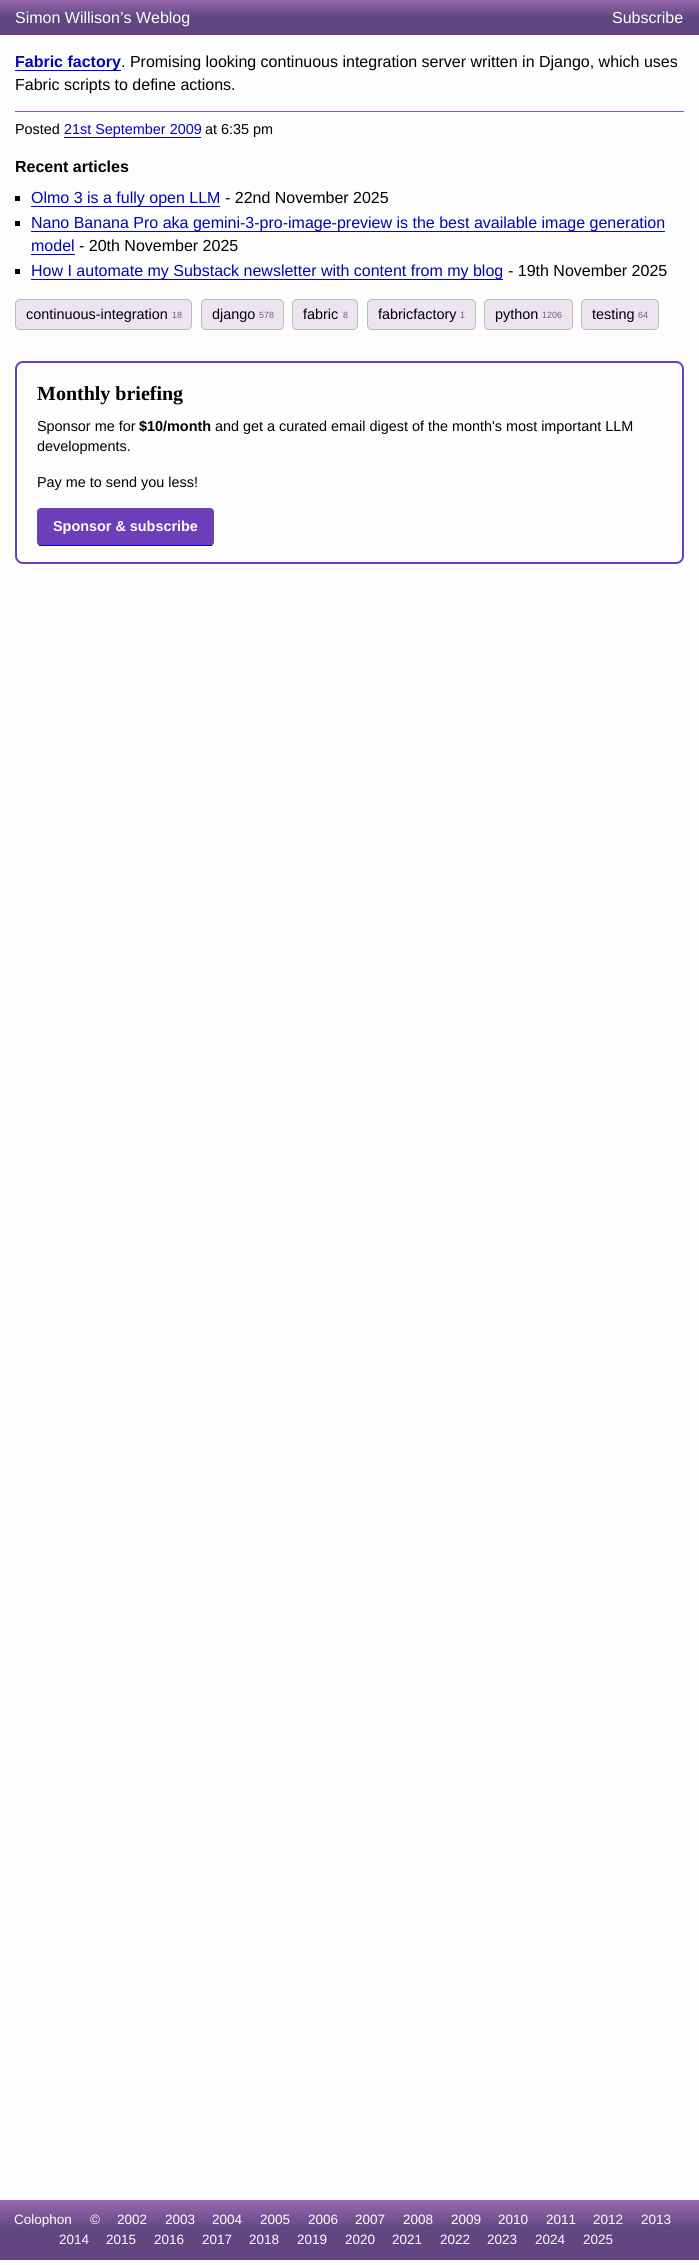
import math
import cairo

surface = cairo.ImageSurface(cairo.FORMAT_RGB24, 699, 2265)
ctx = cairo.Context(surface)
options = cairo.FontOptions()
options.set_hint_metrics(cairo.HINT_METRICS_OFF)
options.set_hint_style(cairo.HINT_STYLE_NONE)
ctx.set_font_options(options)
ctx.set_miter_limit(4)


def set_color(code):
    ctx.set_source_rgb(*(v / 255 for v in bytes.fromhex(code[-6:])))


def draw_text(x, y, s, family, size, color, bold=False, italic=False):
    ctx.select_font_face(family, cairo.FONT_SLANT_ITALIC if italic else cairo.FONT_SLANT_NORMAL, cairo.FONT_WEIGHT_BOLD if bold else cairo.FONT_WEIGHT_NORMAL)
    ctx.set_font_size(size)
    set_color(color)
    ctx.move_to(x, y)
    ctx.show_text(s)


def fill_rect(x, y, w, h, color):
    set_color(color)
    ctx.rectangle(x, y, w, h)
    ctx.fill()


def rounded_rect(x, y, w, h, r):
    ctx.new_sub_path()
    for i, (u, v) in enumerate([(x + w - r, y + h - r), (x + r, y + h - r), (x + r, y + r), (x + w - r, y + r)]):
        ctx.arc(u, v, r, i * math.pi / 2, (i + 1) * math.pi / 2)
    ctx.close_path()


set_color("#fdfdfd")
ctx.paint()
gradient = cairo.LinearGradient(350, 0, 350, 35)
gradient.add_color_stop_rgba(0, 0.604, 0.404, 0.686, 1)
gradient.add_color_stop_rgba(0.49, 0.376, 0.282, 0.506, 1)
gradient.add_color_stop_rgba(1, 0.392, 0.263, 0.51, 1)
ctx.set_source(gradient)
ctx.rectangle(0, 0, 699, 35)
ctx.fill()
draw_text(15, 23, "Simon Willison’s Weblog", "Liberation Sans", 16, "#ffffff")
draw_text(612, 23, "Subscribe", "Liberation Sans", 16, "#ffffff")
fill_rect(15, 70, 106, 1, "#0000ee")
draw_text(15, 67, "Fabric factory", "Liberation Sans", 16, "#0303bb", bold=True)
draw_text(121, 67, ". Promising looking continuous integration server written in Django, which uses", "Liberation Sans", 16, "#000000")
draw_text(15, 90, "Fabric scripts to define actions.", "Liberation Sans", 16, "#000000")
fill_rect(15, 111, 669, 1, "#8a55a8")
draw_text(15, 134, "Posted", "Liberation Sans", 14.4, "#000000")
draw_text(64, 134, "21st September 2009", "Liberation Sans", 14.4, "#0303bb")
fill_rect(64, 137, 137, 1, "#0000ee")
draw_text(205, 134, "at 6:35 pm", "Liberation Sans", 14.4, "#000000")
draw_text(15, 172, "Recent articles", "Liberation Sans", 16, "#000000", bold=True)
fill_rect(15, 196, 5, 5, "#000000")
fill_rect(31, 206, 189, 1, "#0000ee")
draw_text(31, 203, "Olmo 3 is a fully open LLM", "Liberation Sans", 16, "#0303bb")
draw_text(225, 203, "- 22nd November 2025", "Liberation Sans", 16, "#000000")
fill_rect(15, 221, 5, 5, "#000000")
fill_rect(31, 231, 634, 1, "#0000ee")
draw_text(31, 228, "Nano Banana Pro aka gemini-3-pro-image-preview is the best available image generation", "Liberation Sans", 16, "#0303bb")
draw_text(31, 251, "model", "Liberation Sans", 16, "#0303bb")
fill_rect(31, 254, 44, 1, "#0000ee")
draw_text(79, 251, "- 20th November 2025", "Liberation Sans", 16, "#000000")
fill_rect(15, 269, 5, 5, "#000000")
fill_rect(31, 279, 472, 1, "#0000ee")
draw_text(31, 276, "How I automate my Substack newsletter with content from my blog", "Liberation Sans", 16, "#0303bb")
draw_text(508, 276, "- 19th November 2025", "Liberation Sans", 16, "#000000")
set_color("#ede3f1")
rounded_rect(15.5, 299.5, 176, 30, 4.5)
ctx.fill_preserve()
set_color("#bbbbbb")
ctx.set_line_width(1)
ctx.stroke()
draw_text(26, 319, "continuous-integration", "Liberation Sans", 14.4, "#000000")
draw_text(172, 318, "18", "Liberation Sans", 9, "#666666")
set_color("#ede3f1")
rounded_rect(201.5, 299.5, 82, 30, 4.5)
ctx.fill_preserve()
set_color("#bbbbbb")
ctx.stroke()
draw_text(212, 319, "django", "Liberation Sans", 14.4, "#000000")
draw_text(259, 318, "578", "Liberation Sans", 9, "#666666")
set_color("#ede3f1")
rounded_rect(292.5, 299.5, 65, 30, 4.5)
ctx.fill_preserve()
set_color("#bbbbbb")
ctx.stroke()
draw_text(303, 319, "fabric", "Liberation Sans", 14.4, "#000000")
draw_text(343, 318, "8", "Liberation Sans", 9, "#666666")
set_color("#ede3f1")
rounded_rect(367.5, 299.5, 108, 30, 4.5)
ctx.fill_preserve()
set_color("#bbbbbb")
ctx.stroke()
draw_text(378, 319, "fabricfactory", "Liberation Sans", 14.4, "#000000")
draw_text(460, 318, "1", "Liberation Sans", 9, "#666666")
set_color("#ede3f1")
rounded_rect(484.5, 299.5, 88, 30, 4.5)
ctx.fill_preserve()
set_color("#bbbbbb")
ctx.stroke()
draw_text(495, 319, "python", "Liberation Sans", 14.4, "#000000")
draw_text(542, 318, "1206", "Liberation Sans", 9, "#666666")
set_color("#ede3f1")
rounded_rect(581.5, 299.5, 77, 30, 4.5)
ctx.fill_preserve()
set_color("#bbbbbb")
ctx.stroke()
draw_text(592, 319, "testing", "Liberation Sans", 14.4, "#000000")
draw_text(638, 318, "64", "Liberation Sans", 9, "#666666")
rounded_rect(16, 362, 667, 201, 7)
set_color("#6c3eb9")
ctx.set_line_width(2)
ctx.stroke()
draw_text(37, 400, "Monthly briefing", "Liberation Serif", 20, "#000000", bold=True)
draw_text(37, 431, "Sponsor me for", "Liberation Sans", 14.4, "#000000")
draw_text(139, 431, "$10/month", "Liberation Sans", 14.4, "#000000", bold=True)
draw_text(215, 431, "and get a curated email digest of the month's most important LLM", "Liberation Sans", 14.4, "#000000")
draw_text(37, 451, "developments.", "Liberation Sans", 14.4, "#000000")
draw_text(37, 487, "Pay me to send you less!", "Liberation Sans", 14.4, "#000000")
set_color("#6c3eb9")
rounded_rect(37, 508, 177, 38, 4)
ctx.fill()
fill_rect(39, 545, 173, 1, "#0000ee")
draw_text(53, 531, "Sponsor & subscribe", "Liberation Sans", 14.4, "#ffffff", bold=True)
gradient = cairo.LinearGradient(350, 2200, 350, 2260)
gradient.add_color_stop_rgba(0, 0.604, 0.404, 0.686, 1)
gradient.add_color_stop_rgba(0.49, 0.376, 0.282, 0.506, 1)
gradient.add_color_stop_rgba(1, 0.392, 0.263, 0.51, 1)
ctx.set_source(gradient)
ctx.rectangle(0, 2200, 699, 60)
ctx.fill()
draw_text(14, 2224, "Colophon", "Liberation Sans", 13.5, "#ffffff")
draw_text(90, 2224, "©", "Liberation Sans", 13.5, "#ffffff")
draw_text(117, 2224, "2002", "Liberation Sans", 13.5, "#ffffff")
draw_text(165, 2224, "2003", "Liberation Sans", 13.5, "#ffffff")
draw_text(212, 2224, "2004", "Liberation Sans", 13.5, "#ffffff")
draw_text(260, 2224, "2005", "Liberation Sans", 13.5, "#ffffff")
draw_text(308, 2224, "2006", "Liberation Sans", 13.5, "#ffffff")
draw_text(355, 2224, "2007", "Liberation Sans", 13.5, "#ffffff")
draw_text(403, 2224, "2008", "Liberation Sans", 13.5, "#ffffff")
draw_text(451, 2224, "2009", "Liberation Sans", 13.5, "#ffffff")
draw_text(498, 2224, "2010", "Liberation Sans", 13.5, "#ffffff")
draw_text(546, 2224, "2011", "Liberation Sans", 13.5, "#ffffff")
draw_text(593, 2224, "2012", "Liberation Sans", 13.5, "#ffffff")
draw_text(641, 2224, "2013", "Liberation Sans", 13.5, "#ffffff")
draw_text(59, 2244, "2014", "Liberation Sans", 13.5, "#ffffff")
draw_text(106, 2244, "2015", "Liberation Sans", 13.5, "#ffffff")
draw_text(154, 2244, "2016", "Liberation Sans", 13.5, "#ffffff")
draw_text(202, 2244, "2017", "Liberation Sans", 13.5, "#ffffff")
draw_text(249, 2244, "2018", "Liberation Sans", 13.5, "#ffffff")
draw_text(297, 2244, "2019", "Liberation Sans", 13.5, "#ffffff")
draw_text(345, 2244, "2020", "Liberation Sans", 13.5, "#ffffff")
draw_text(392, 2244, "2021", "Liberation Sans", 13.5, "#ffffff")
draw_text(440, 2244, "2022", "Liberation Sans", 13.5, "#ffffff")
draw_text(487, 2244, "2023", "Liberation Sans", 13.5, "#ffffff")
draw_text(535, 2244, "2024", "Liberation Sans", 13.5, "#ffffff")
draw_text(583, 2244, "2025", "Liberation Sans", 13.5, "#ffffff")
surface.write_to_png("output.png")
